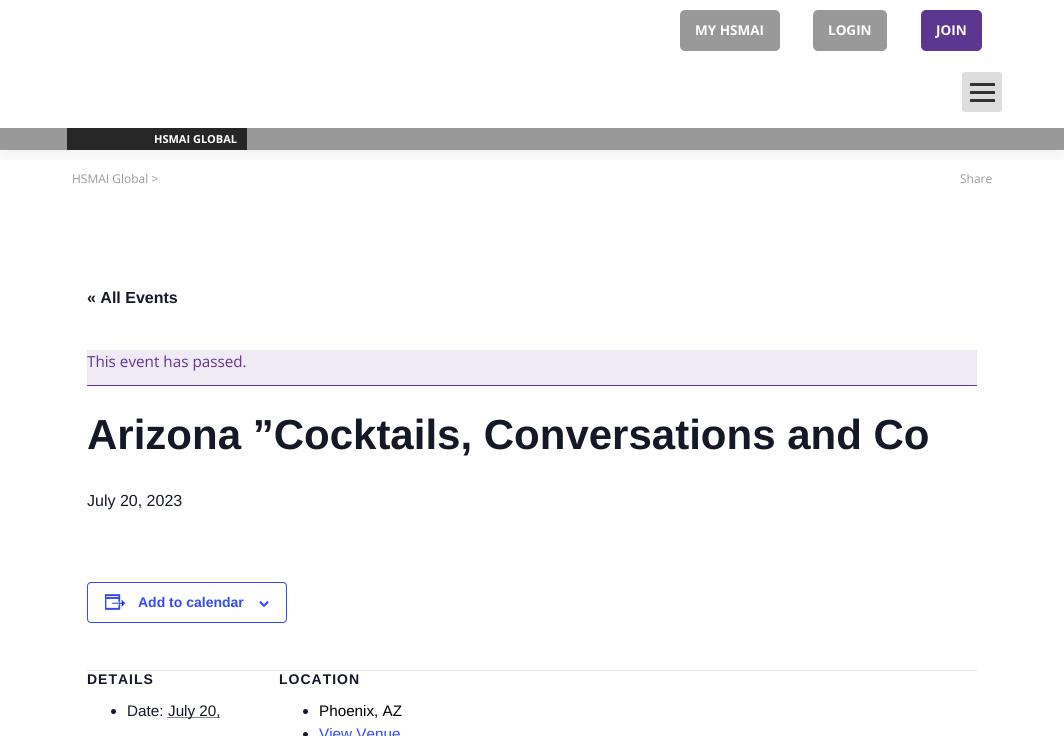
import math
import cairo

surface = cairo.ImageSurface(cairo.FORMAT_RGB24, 1064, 736)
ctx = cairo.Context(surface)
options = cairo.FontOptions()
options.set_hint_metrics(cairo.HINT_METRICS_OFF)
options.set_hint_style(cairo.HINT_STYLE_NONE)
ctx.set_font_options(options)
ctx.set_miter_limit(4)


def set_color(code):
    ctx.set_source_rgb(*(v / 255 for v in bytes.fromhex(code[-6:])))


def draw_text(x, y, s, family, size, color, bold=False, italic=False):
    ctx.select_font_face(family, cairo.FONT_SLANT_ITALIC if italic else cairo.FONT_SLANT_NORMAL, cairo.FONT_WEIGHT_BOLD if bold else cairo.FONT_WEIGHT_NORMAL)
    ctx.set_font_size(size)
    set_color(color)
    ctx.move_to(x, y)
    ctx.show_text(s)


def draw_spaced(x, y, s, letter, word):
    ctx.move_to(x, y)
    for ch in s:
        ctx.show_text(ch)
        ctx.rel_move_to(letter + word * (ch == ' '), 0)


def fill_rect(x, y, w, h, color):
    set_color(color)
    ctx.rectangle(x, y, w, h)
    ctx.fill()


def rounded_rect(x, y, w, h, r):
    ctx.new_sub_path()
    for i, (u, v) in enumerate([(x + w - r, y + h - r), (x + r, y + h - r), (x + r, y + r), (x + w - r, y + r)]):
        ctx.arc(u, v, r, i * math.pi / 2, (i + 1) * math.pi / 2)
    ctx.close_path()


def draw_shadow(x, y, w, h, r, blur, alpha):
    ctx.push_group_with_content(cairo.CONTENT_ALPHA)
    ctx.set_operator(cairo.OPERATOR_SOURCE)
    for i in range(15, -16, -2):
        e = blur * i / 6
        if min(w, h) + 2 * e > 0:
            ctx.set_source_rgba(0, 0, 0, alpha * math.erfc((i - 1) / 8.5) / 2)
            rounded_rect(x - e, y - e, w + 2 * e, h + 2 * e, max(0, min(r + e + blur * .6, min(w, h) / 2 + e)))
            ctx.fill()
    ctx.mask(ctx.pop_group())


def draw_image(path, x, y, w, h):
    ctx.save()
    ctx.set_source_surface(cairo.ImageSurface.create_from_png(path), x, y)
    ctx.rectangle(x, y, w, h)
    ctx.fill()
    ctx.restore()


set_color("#ffffff")
ctx.paint()
ctx.save()
ctx.rectangle(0, 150, 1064, 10)
ctx.clip()
set_color("#000000")
draw_shadow(0, 8, 1064, 150, 0, 7.5, 0.05)
ctx.restore()
set_color("#999999")
rounded_rect(680, 10, 100, 41, 5)
ctx.fill()
draw_text(695, 35, "MY HSMAI", "Open Sans", 13.5, "#ffffff", bold=True)
set_color("#999999")
rounded_rect(813, 10, 74, 41, 5)
ctx.fill()
draw_text(828, 35, "LOGIN", "Open Sans", 13.5, "#ffffff", bold=True)
set_color("#5d378f")
rounded_rect(921, 10, 61, 41, 5)
ctx.fill()
draw_text(936, 35, "JOIN", "Open Sans", 13.5, "#ffffff", bold=True)
fill_rect(0, 128, 1064, 22, "#999999")
fill_rect(67, 128, 180, 22, "#262626")
draw_text(154, 143, "HSMAI GLOBAL", "Open Sans", 11, "#ffffff", bold=True)
draw_text(72, 183, "HSMAI Global >", "Open Sans", 12, "#999999")
draw_text(960, 183, "Share", "Open Sans", 12, "#999999")
draw_text(87, 303, "« All Events", "Liberation Sans", 16, "#141827", bold=True)
fill_rect(87, 350, 890, 35, "#efeaf4")
fill_rect(87, 385, 890, 1, "#663399")
draw_text(87, 367, "This event has passed.", "Open Sans", 15.25, "#663399")
draw_text(87, 449, "Arizona ”Cocktails, Conversations and Co", "Liberation Sans", 42, "#141827", bold=True)
draw_text(87, 506, "July 20, 2023", "Liberation Sans", 16, "#141827")
rounded_rect(87.5, 582.5, 199, 40, 3.5)
set_color("#334aff")
ctx.set_line_width(1)
ctx.stroke()
draw_image("assets/img1.png", 105, 594, 21, 16)
draw_text(138, 607, "Add to calendar", "Liberation Sans", 14, "#334aff", bold=True)
draw_image("assets/img2.png", 259, 601, 10, 6)
fill_rect(87, 670, 890, 1, "#e4e4e4")
set_color("#141827")
draw_spaced(87, 684, "DETAILS", 1, 0)
ctx.new_path()
ctx.arc(113.5, 711.5, 2.5, 0, 2 * math.pi)
ctx.fill()
draw_text(127, 716, "Date:", "Liberation Sans", 15.25, "#141827")
ctx.new_path()
ctx.move_to(167.5, 717.5)
ctx.line_to(220, 717.5)
ctx.set_dash([1, 1])
ctx.stroke()
draw_text(168, 716, "July 20,", "Liberation Sans", 15.25, "#141827")
ctx.select_font_face("Liberation Sans", cairo.FONT_SLANT_NORMAL, cairo.FONT_WEIGHT_BOLD)
ctx.set_font_size(14)
draw_spaced(279, 684, "LOCATION", 1, 0)
ctx.new_path()
ctx.arc(305.5, 711.5, 2.5, 0, 2 * math.pi)
ctx.fill()
draw_text(319, 716, "Phoenix, AZ", "Liberation Sans", 15.25, "#000000")
set_color("#141827")
ctx.new_path()
ctx.arc(305.5, 734.5, 2.5, 0, 2 * math.pi)
ctx.fill()
draw_text(319, 739, "View Venue", "Liberation Sans", 15.25, "#334aff")
set_color("#dddddd")
rounded_rect(962, 72, 40, 40, 3)
ctx.fill()
fill_rect(970, 83, 25, 3, "#333333")
fill_rect(970, 91, 25, 3, "#333333")
fill_rect(970, 99, 25, 3, "#333333")
surface.write_to_png("output.png")
